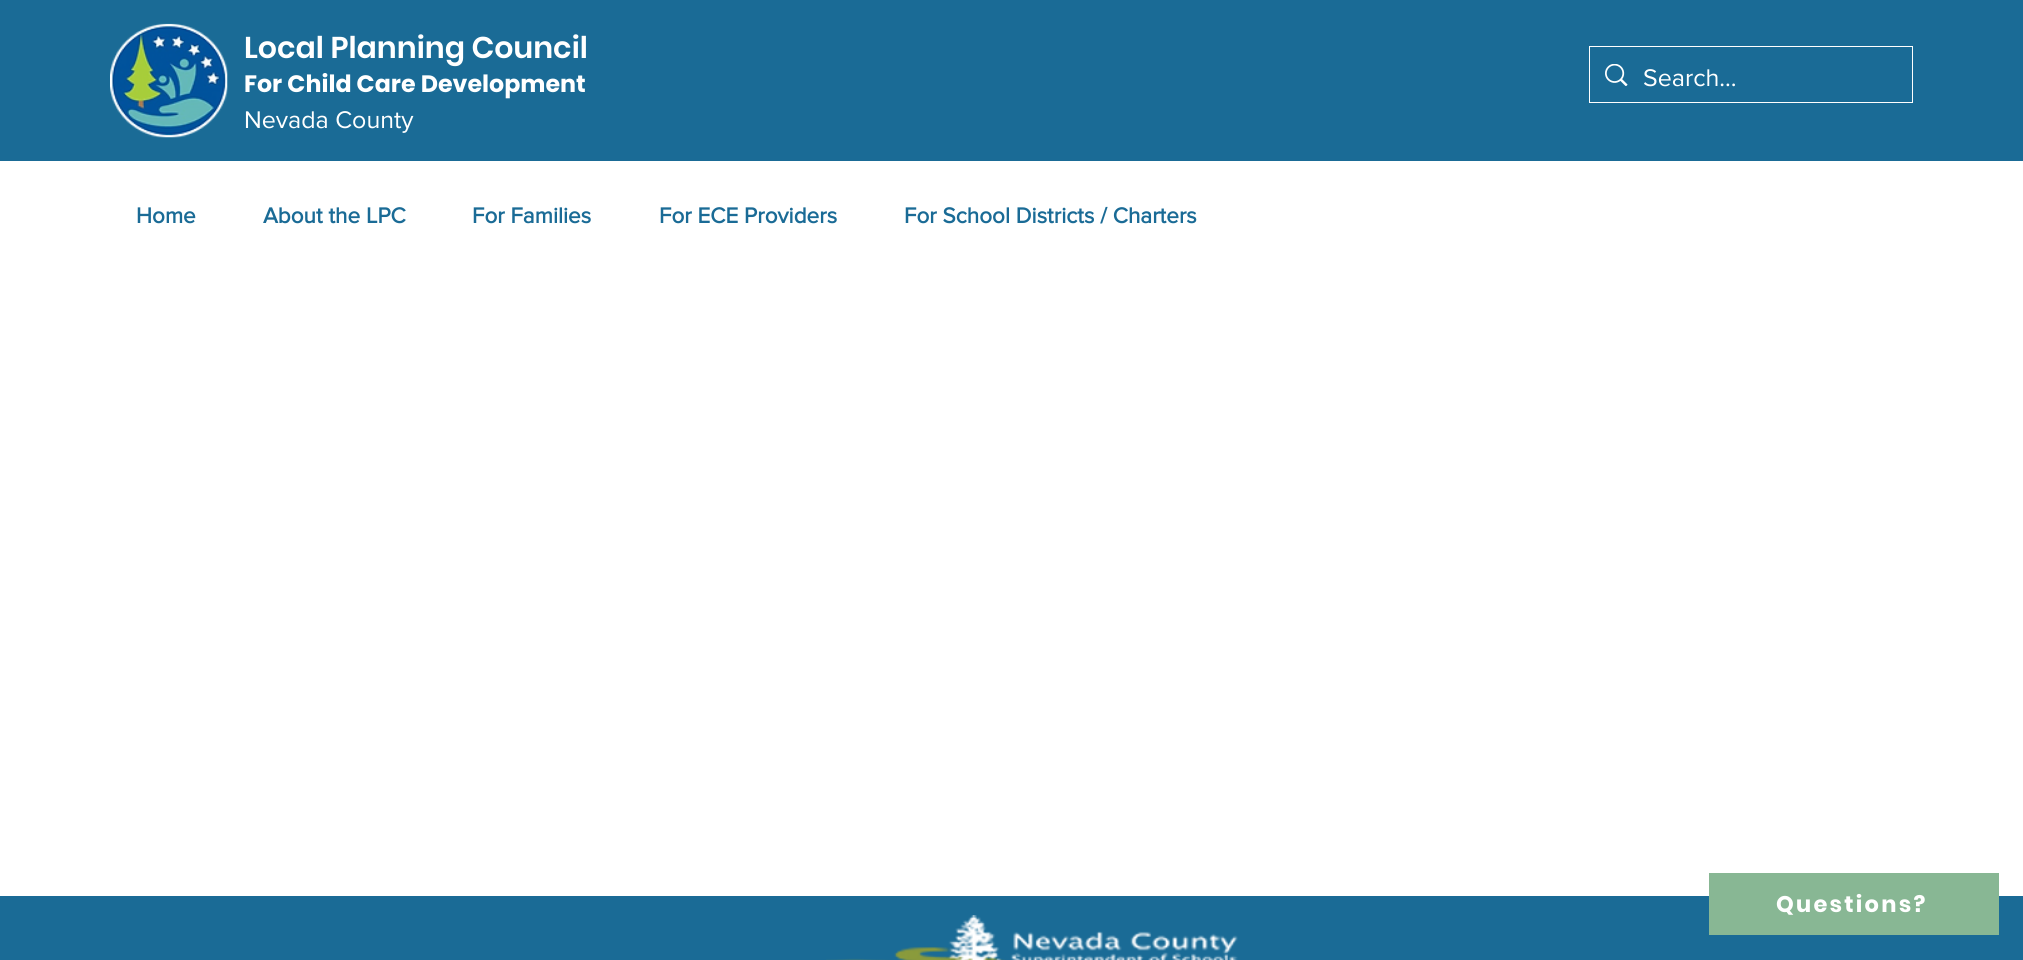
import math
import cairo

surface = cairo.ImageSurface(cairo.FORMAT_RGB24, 2023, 960)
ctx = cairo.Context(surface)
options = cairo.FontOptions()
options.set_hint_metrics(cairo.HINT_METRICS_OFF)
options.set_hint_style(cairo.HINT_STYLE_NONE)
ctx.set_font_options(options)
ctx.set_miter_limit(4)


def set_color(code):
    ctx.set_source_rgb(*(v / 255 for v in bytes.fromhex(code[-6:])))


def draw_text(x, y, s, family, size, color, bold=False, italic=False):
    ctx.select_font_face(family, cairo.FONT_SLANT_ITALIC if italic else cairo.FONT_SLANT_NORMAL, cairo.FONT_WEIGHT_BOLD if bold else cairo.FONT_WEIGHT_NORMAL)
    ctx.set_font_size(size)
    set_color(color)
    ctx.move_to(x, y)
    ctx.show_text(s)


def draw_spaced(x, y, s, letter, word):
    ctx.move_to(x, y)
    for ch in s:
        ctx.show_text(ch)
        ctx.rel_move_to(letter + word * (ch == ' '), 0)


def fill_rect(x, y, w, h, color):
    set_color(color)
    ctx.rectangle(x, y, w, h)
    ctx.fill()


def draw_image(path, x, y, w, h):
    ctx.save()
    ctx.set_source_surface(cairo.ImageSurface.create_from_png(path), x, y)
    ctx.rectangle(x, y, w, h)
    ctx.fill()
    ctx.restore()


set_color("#ffffff")
ctx.paint()
fill_rect(0, 0, 2023, 161, "#1a6b96")
draw_image("assets/img1.png", 110, 23, 118, 115)
draw_text(244, 58, "Local Planning Council", "Poppins SemiBold", 30, "#ffffff")
draw_text(244, 92, "For Child Care Development", "Poppins", 23.75, "#ffffff", bold=True)
draw_text(244, 128, "Nevada County", "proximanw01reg", 25, "#ffffff")
ctx.rectangle(1589.5, 46.5, 323, 56)
ctx.set_line_width(1)
ctx.stroke()
draw_image("assets/img2.png", 1605, 64, 23, 22)
draw_text(1643, 86, "Search...", "proximanw01reg", 25, "#ffffff")
draw_text(136, 223, "Home", "proximanw01reg", 22.5, "#1a6b96", bold=True)
draw_text(263, 223, "About the LPC", "proximanw01reg", 22.5, "#1a6b96", bold=True)
draw_text(472, 223, "For Families", "proximanw01reg", 22.5, "#1a6b96", bold=True)
draw_text(659, 223, "For ECE Providers", "proximanw01reg", 22.5, "#1a6b96", bold=True)
draw_text(904, 223, "For School Districts / Charters", "proximanw01reg", 22.5, "#1a6b96", bold=True)
fill_rect(0, 896, 2023, 64, "#1a6b96")
fill_rect(1709, 873, 290, 62, "#88b794")
ctx.select_font_face("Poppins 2", cairo.FONT_SLANT_NORMAL, cairo.FONT_WEIGHT_BOLD)
set_color("#ffffff")
draw_spaced(1776, 912, "Questions?", 2.25, 0)
draw_image("assets/img3.png", 826, 915, 412, 45)
surface.write_to_png("output.png")
